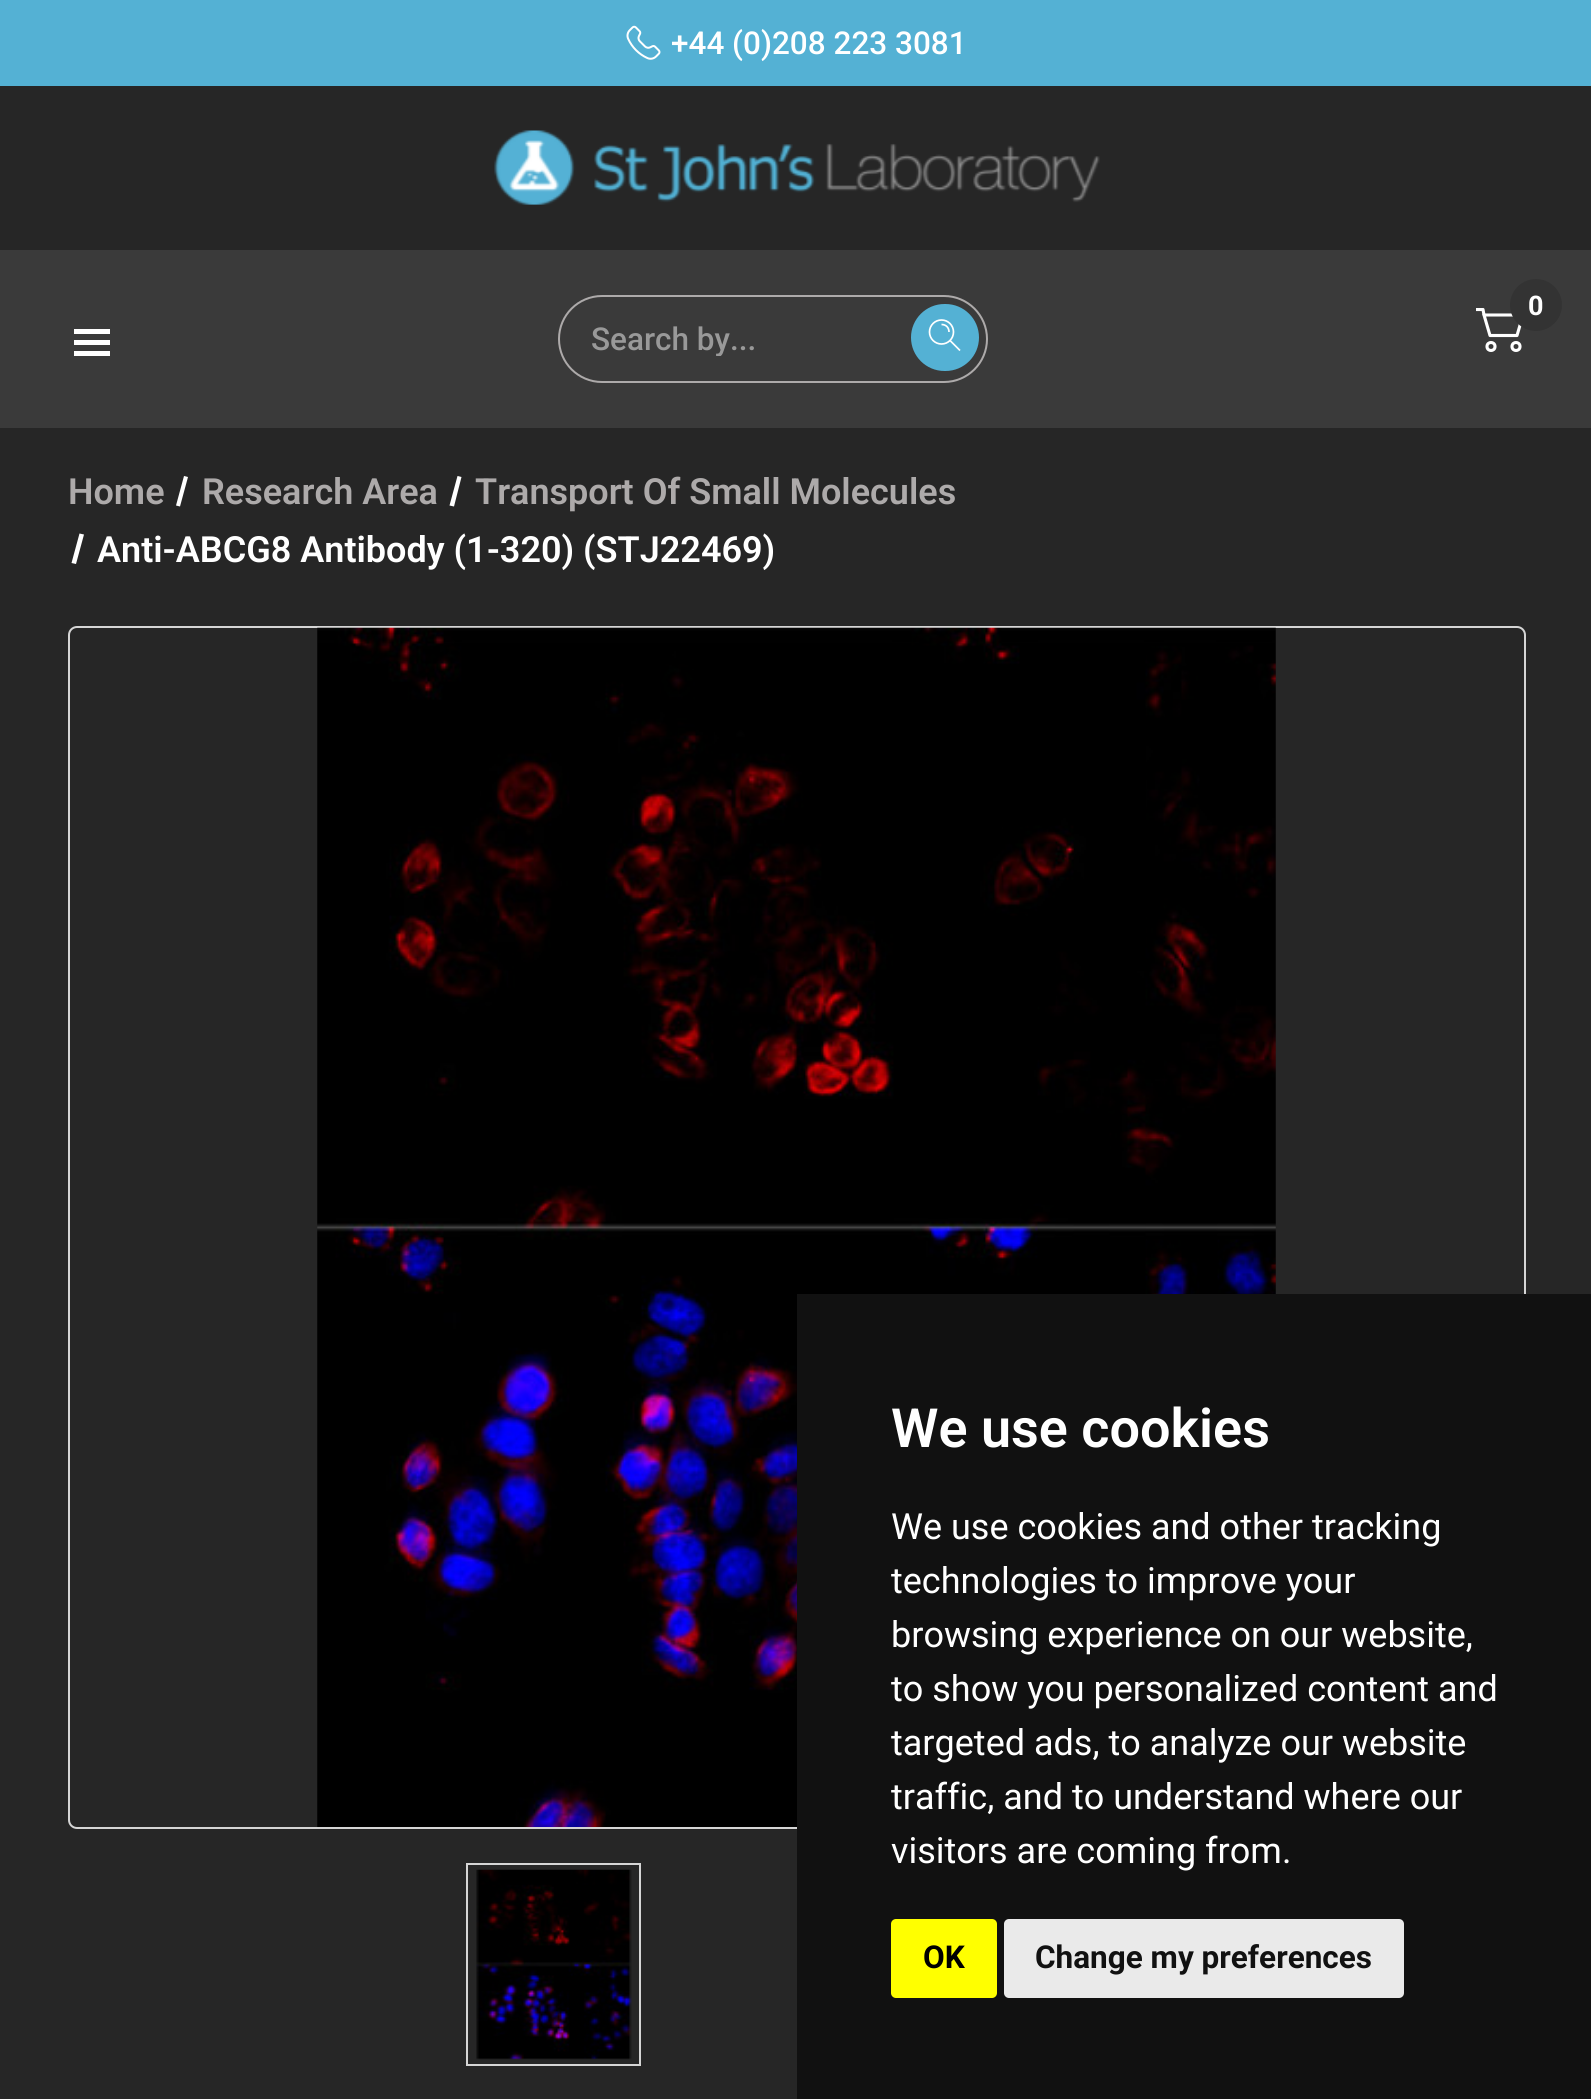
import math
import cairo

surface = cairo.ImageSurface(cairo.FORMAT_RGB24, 1591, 2099)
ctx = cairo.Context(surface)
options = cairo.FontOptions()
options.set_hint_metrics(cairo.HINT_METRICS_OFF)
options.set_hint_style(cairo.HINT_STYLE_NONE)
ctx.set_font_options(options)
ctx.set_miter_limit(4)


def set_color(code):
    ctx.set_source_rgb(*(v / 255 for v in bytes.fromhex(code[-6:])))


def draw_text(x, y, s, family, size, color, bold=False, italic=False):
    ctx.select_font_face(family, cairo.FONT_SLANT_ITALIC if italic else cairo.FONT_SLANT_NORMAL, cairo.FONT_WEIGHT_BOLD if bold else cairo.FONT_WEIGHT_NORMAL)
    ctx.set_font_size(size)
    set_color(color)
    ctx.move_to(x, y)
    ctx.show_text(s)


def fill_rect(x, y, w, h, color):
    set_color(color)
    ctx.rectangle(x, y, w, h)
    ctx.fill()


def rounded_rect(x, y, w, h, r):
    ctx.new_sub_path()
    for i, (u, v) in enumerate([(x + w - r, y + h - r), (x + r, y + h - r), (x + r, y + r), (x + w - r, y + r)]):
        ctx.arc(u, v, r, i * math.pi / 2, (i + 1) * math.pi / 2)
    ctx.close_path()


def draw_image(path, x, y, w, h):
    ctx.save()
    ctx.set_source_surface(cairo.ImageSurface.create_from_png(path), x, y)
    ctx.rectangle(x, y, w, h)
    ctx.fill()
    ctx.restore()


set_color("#262626")
ctx.paint()
fill_rect(0, 0, 1591, 86, "#54b1d4")
draw_image("assets/img1.png", 626, 25, 35, 35)
draw_text(671, 54, "+44 (0)208 223 3081", "Roboto Medium", 31.5, "#ffffff")
draw_image("assets/img2.png", 494, 130, 606, 75)
fill_rect(0, 250, 1591, 178, "#3a3a3a")
fill_rect(74, 340, 36, 5, "#ffffff")
fill_rect(74, 329, 36, 5, "#ffffff")
fill_rect(74, 351, 36, 5, "#ffffff")
ctx.new_path()
ctx.move_to(1484, 315)
ctx.line_to(1523, 315)
ctx.line_to(1517, 335.5)
ctx.line_to(1490, 335.5)
ctx.close_path()
ctx.set_line_width(3.1)
ctx.set_line_join(cairo.LINE_JOIN_ROUND)
ctx.stroke()
set_color("#333333")
ctx.arc(1536, 305, 26, 0, 2 * math.pi)
ctx.fill()
draw_text(1528, 315, "0", "Roboto", 27, "#ffffff", bold=True)
ctx.save()
ctx.rectangle(1476, 308, 50, 45)
ctx.clip()
ctx.new_path()
ctx.move_to(1484, 315)
ctx.line_to(1483, 309.5)
ctx.line_to(1476, 309.5)
ctx.stroke()
ctx.restore()
ctx.arc(1491, 346.5, 4, 0, 2 * math.pi)
ctx.set_line_join(cairo.LINE_JOIN_MITER)
ctx.stroke()
ctx.arc(1516, 346.5, 4, 0, 2 * math.pi)
ctx.stroke()
rounded_rect(559, 296, 428, 86, 43)
set_color("#adaaaa")
ctx.set_line_width(2)
ctx.stroke()
ctx.save()
ctx.rectangle(592, 320, 362, 36)
ctx.clip()
draw_text(591, 350, "Search by...", "Roboto Medium", 31.5, "#999999")
ctx.restore()
set_color("#54b1d4")
rounded_rect(911, 304, 68, 67, 33.5)
ctx.fill()
ctx.arc(941.5, 332, 12, 0, 2 * math.pi)
set_color("#ffffff")
ctx.set_line_width(1.7)
ctx.stroke()
ctx.new_path()
ctx.move_to(949, 332)
ctx.curve_to(949, 327.5, 946, 324.5, 941.5, 324.5)
ctx.stroke()
ctx.new_path()
ctx.move_to(960, 350.5)
ctx.line_to(950, 340.5)
ctx.set_line_join(cairo.LINE_JOIN_ROUND)
ctx.stroke()
draw_text(68, 504, "Home", "Roboto SemiBold", 36, "#adaaaa")
set_color("#ffffff")
ctx.new_path()
ctx.move_to(184, 476)
ctx.line_to(188, 477)
ctx.line_to(180, 506.5)
ctx.line_to(176, 505.5)
ctx.close_path()
ctx.fill()
draw_text(202, 504, "Research Area", "Roboto SemiBold", 36, "#adaaaa")
set_color("#ffffff")
ctx.new_path()
ctx.move_to(457.5, 476)
ctx.line_to(461.5, 477)
ctx.line_to(454, 506.5)
ctx.line_to(449.5, 505.5)
ctx.close_path()
ctx.fill()
draw_text(475, 504, "Transport Of Small Molecules", "Roboto SemiBold", 36, "#adaaaa")
set_color("#ffffff")
ctx.new_path()
ctx.move_to(79.5, 533.5)
ctx.line_to(84, 534.5)
ctx.line_to(76, 564)
ctx.line_to(71.5, 563)
ctx.close_path()
ctx.fill()
draw_text(97, 562, "Anti-ABCG8 Antibody (1-320) (STJ22469)", "Roboto SemiBold", 36, "#ffffff")
rounded_rect(69, 627, 1456, 1201, 8)
set_color("#d5d5d5")
ctx.set_line_width(2)
ctx.set_line_join(cairo.LINE_JOIN_MITER)
ctx.stroke()
draw_image("assets/img3.png", 317, 627, 959, 1200)
ctx.rectangle(467, 1864, 173, 201)
ctx.stroke()
draw_image("assets/img4.png", 476, 1869, 156, 191)
fill_rect(797, 1294, 794, 805, "#111111")
draw_text(891, 1447, "We use cookies", "Roboto SemiBold", 54, "#ffffff")
draw_text(891, 1539, "We use cookies and other tracking", "Roboto", 36, "#ffffff")
draw_text(891, 1593, "technologies to improve your", "Roboto", 36, "#ffffff")
draw_text(891, 1647, "browsing experience on our website,", "Roboto", 36, "#ffffff")
draw_text(891, 1701, "to show you personalized content and", "Roboto", 36, "#ffffff")
draw_text(891, 1755, "targeted ads, to analyze our website", "Roboto", 36, "#ffffff")
draw_text(891, 1809, "traffic, and to understand where our", "Roboto", 36, "#ffffff")
draw_text(891, 1863, "visitors are coming from.", "Roboto", 36, "#ffffff")
set_color("#ffff00")
rounded_rect(891, 1919, 106, 79, 5)
ctx.fill()
draw_text(923, 1968, "OK", "Roboto", 31.5, "#000000", bold=True)
set_color("#eaeaea")
rounded_rect(1004, 1919, 400, 79, 5)
ctx.fill()
draw_text(1035, 1968, "Change my preferences", "Roboto", 31.5, "#111111", bold=True)
surface.write_to_png("output.png")
